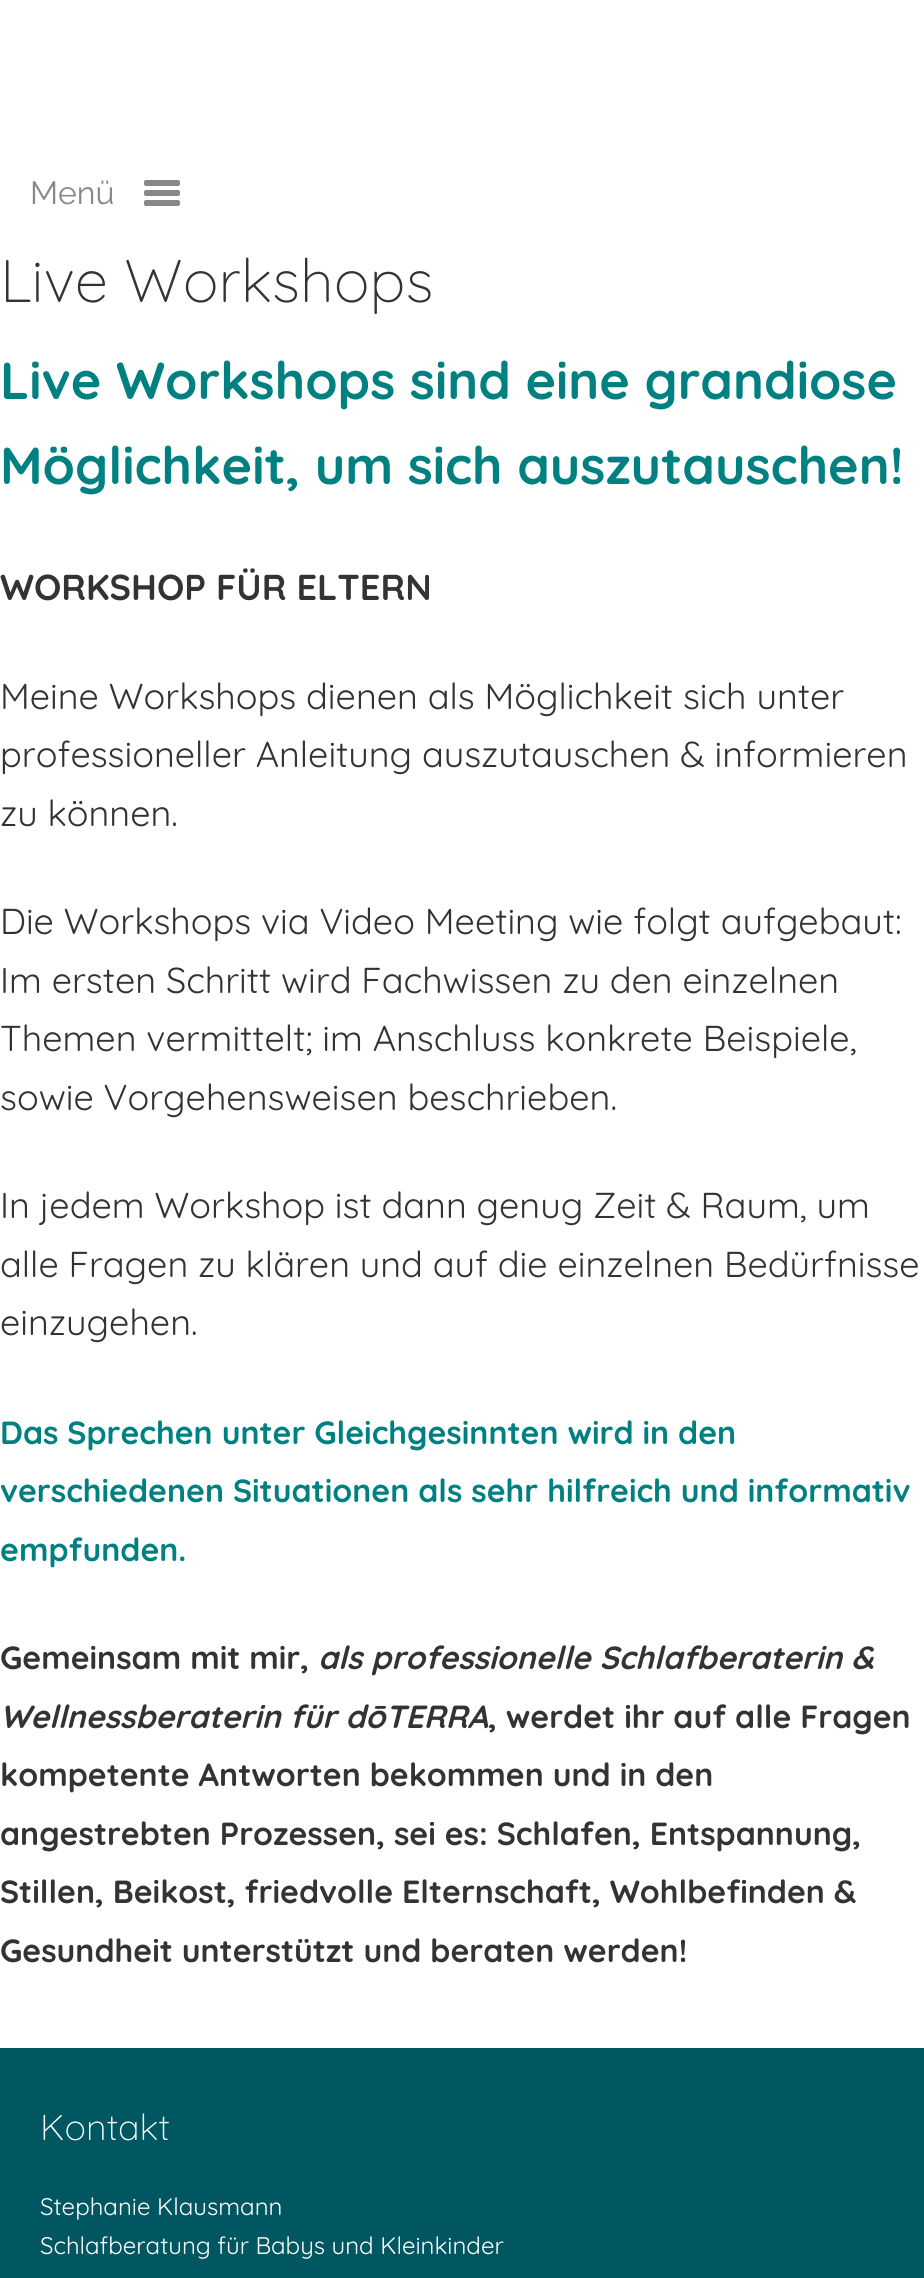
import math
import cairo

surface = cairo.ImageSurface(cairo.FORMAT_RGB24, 924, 2278)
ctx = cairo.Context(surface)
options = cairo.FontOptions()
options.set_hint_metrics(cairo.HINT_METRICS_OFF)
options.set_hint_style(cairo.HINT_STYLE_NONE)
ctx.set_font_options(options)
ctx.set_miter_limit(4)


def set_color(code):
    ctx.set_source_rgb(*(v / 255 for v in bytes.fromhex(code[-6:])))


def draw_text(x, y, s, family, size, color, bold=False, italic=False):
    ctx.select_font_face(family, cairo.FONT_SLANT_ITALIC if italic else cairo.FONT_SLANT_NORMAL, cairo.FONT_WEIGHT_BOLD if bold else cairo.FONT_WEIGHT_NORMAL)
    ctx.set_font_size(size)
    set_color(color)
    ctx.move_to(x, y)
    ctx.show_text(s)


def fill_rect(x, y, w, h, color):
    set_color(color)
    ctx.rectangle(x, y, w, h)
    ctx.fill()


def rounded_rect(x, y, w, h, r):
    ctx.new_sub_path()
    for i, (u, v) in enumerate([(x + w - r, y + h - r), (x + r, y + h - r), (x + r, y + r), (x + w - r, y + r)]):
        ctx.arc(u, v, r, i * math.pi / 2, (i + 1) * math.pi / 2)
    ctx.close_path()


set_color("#ffffff")
ctx.paint()
draw_text(30, 204, "Menü", "Raleway", 32, "#888888")
rounded_rect(144, 180, 36, 6, 2)
ctx.fill()
rounded_rect(144, 190, 36, 6, 2)
ctx.fill()
rounded_rect(144, 200, 36, 6, 2)
ctx.fill()
draw_text(0, 302, "Live Workshops", "Quicksand Light", 60, "#333333")
draw_text(0, 399, "Live Workshops sind eine grandiose", "Quicksand", 52, "#008080", bold=True)
draw_text(0, 484, "Möglichkeit, um sich auszutauschen!", "Quicksand", 52, "#008080", bold=True)
draw_text(0, 600, "WORKSHOP FÜR ELTERN", "Quicksand", 36, "#333333", bold=True)
draw_text(0, 709, "Meine Workshops dienen als Möglichkeit sich unter", "Quicksand", 36, "#333333")
draw_text(0, 767, "professioneller Anleitung auszutauschen & informieren", "Quicksand", 36, "#333333")
draw_text(0, 826, "zu können.", "Quicksand", 36, "#333333")
draw_text(0, 934, "Die Workshops via Video Meeting wie folgt aufgebaut:", "Quicksand", 36, "#333333")
draw_text(0, 993, "Im ersten Schritt wird Fachwissen zu den einzelnen", "Quicksand", 36, "#333333")
draw_text(0, 1051, "Themen vermittelt; im Anschluss konkrete Beispiele,", "Quicksand", 36, "#333333")
draw_text(0, 1110, "sowie Vorgehensweisen beschrieben.", "Quicksand", 36, "#333333")
draw_text(0, 1218, "In jedem Workshop ist dann genug Zeit & Raum, um", "Quicksand", 36, "#333333")
draw_text(0, 1277, "alle Fragen zu klären und auf die einzelnen Bedürfnisse", "Quicksand", 36, "#333333")
draw_text(0, 1335, "einzugehen.", "Quicksand", 36, "#333333")
draw_text(0, 1444, "Das Sprechen unter Gleichgesinnten wird in den", "Quicksand", 32, "#008080", bold=True)
draw_text(0, 1502, "verschiedenen Situationen als sehr hilfreich und informativ", "Quicksand", 32, "#008080", bold=True)
draw_text(0, 1561, "empfunden.", "Quicksand", 32, "#008080", bold=True)
draw_text(0, 1669, "Gemeinsam mit mir,", "Quicksand", 32, "#333333", bold=True)
draw_text(318, 1669, "als professionelle Schlafberaterin &", "Quicksand", 32, "#333333", bold=True, italic=True)
draw_text(0, 1728, "Wellnessberaterin für dōTERRA", "Quicksand", 32, "#333333", bold=True, italic=True)
draw_text(488, 1728, ", werdet ihr auf alle Fragen", "Quicksand", 32, "#333333", bold=True)
draw_text(0, 1786, "kompetente Antworten bekommen und in den", "Quicksand", 32, "#333333", bold=True)
draw_text(0, 1845, "angestrebten Prozessen, sei es: Schlafen, Entspannung,", "Quicksand", 32, "#333333", bold=True)
draw_text(0, 1903, "Stillen, Beikost, friedvolle Elternschaft, Wohlbefinden &", "Quicksand", 32, "#333333", bold=True)
draw_text(0, 1962, "Gesundheit unterstützt und beraten werden!", "Quicksand", 32, "#333333", bold=True)
fill_rect(0, 2048, 924, 230, "#005761")
draw_text(40, 2140, "Kontakt", "Quicksand Light", 36, "#ffffff")
draw_text(40, 2215, "Stephanie Klausmann", "Quicksand", 24, "#ffffff")
draw_text(40, 2254, "Schlafberatung für Babys und Kleinkinder", "Quicksand", 24, "#ffffff")
surface.write_to_png("output.png")
